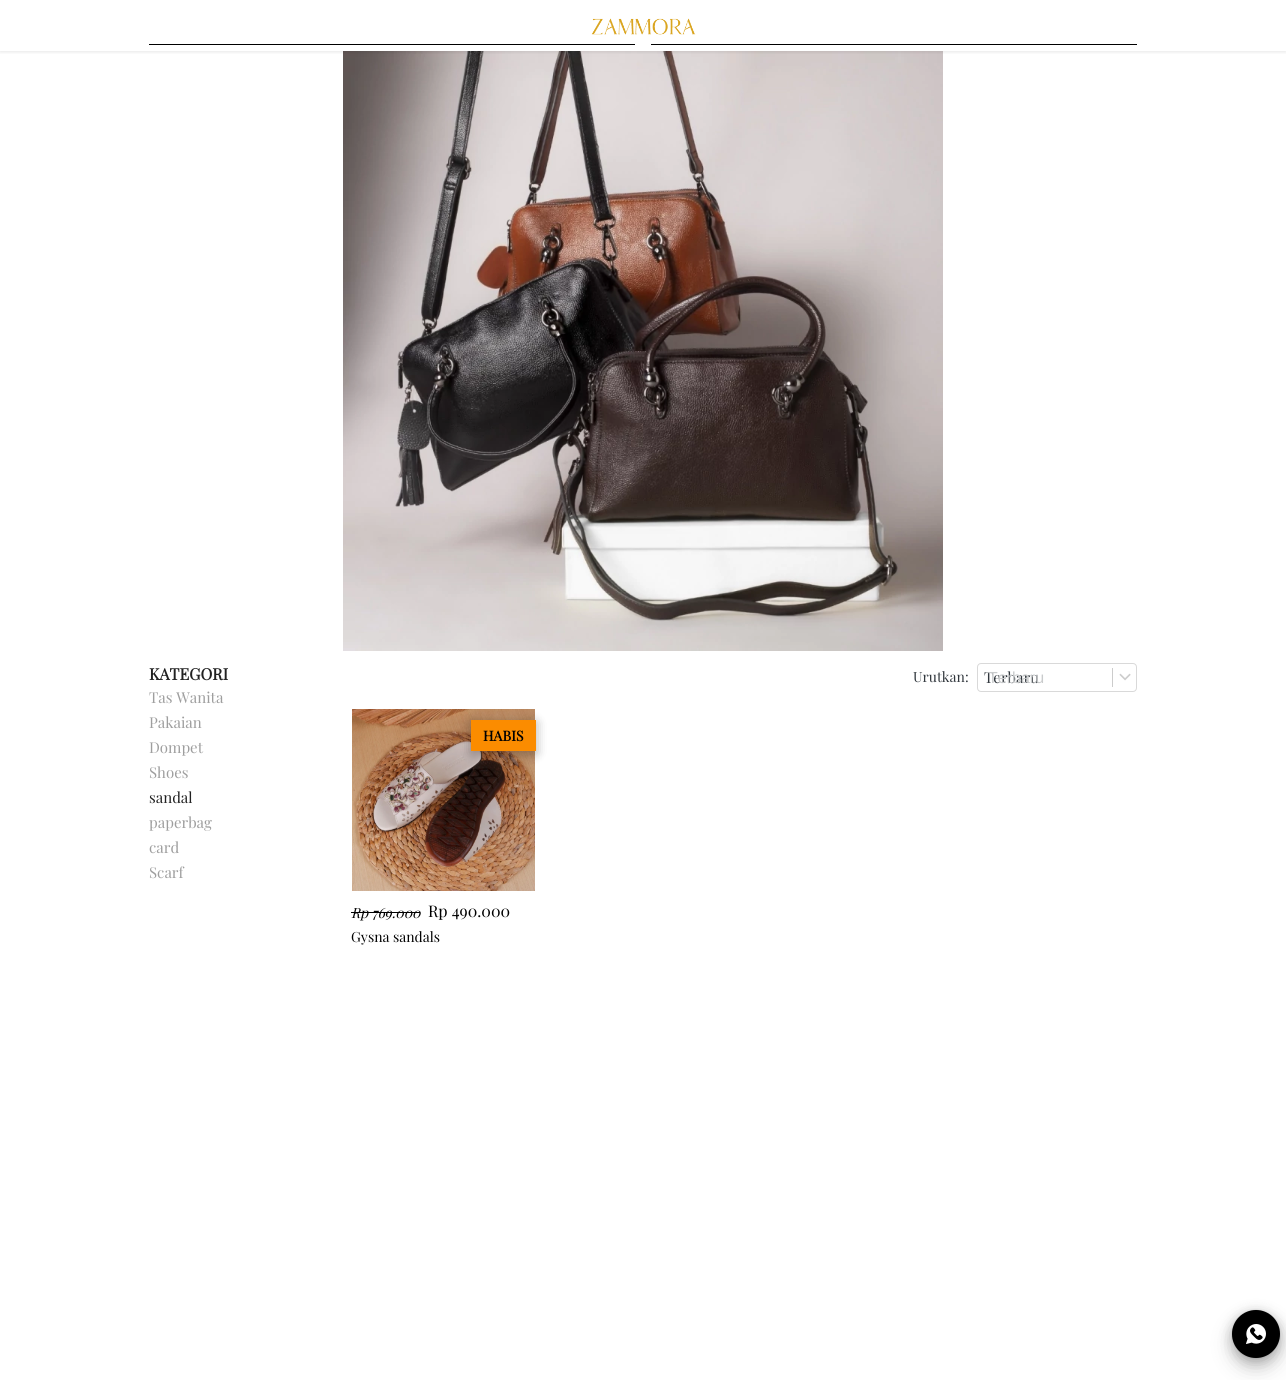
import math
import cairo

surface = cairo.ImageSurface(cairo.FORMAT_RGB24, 1286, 1380)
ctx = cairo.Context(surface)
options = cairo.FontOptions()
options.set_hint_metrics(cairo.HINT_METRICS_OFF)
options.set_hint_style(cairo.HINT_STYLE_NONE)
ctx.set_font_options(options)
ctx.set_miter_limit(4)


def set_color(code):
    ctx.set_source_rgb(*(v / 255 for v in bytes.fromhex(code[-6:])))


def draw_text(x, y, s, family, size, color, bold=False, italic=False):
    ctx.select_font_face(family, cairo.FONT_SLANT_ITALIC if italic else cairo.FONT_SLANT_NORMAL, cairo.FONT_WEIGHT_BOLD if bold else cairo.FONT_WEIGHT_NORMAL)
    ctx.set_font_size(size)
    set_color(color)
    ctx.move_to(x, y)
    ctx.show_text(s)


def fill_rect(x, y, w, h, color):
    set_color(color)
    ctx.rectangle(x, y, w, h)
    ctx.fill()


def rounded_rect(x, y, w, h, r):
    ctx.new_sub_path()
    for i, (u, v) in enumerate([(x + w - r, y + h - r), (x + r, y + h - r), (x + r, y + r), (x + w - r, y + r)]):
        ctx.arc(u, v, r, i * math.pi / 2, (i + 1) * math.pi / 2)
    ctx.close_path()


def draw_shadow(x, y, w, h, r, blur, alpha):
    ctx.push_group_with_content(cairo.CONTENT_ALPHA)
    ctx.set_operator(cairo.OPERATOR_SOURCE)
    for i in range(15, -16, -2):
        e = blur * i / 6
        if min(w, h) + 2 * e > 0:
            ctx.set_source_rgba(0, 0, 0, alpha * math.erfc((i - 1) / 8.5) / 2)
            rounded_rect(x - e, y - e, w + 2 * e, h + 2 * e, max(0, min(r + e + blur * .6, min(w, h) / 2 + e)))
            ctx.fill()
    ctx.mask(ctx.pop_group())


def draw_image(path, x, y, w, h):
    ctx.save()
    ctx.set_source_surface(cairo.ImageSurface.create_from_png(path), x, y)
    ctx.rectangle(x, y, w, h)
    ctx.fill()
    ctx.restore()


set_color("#ffffff")
ctx.paint()
draw_image("assets/img2.png", 343, 51, 600, 600)
ctx.save()
ctx.rectangle(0, 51, 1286, 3)
ctx.clip()
set_color("#000000")
draw_shadow(0, 1, 1286, 51, 0, 2, 0.1)
ctx.restore()
draw_image("assets/img1.png", 591, 18, 105, 17)
fill_rect(149, 44, 486, 1, "#000000")
fill_rect(651, 44, 486, 1, "#000000")
draw_text(149, 680, "KATEGORI", "Playfair Display", 16, "#212121", bold=True)
draw_text(149, 703, "Tas Wanita", "Playfair Display", 15, "#9e9e9e")
draw_text(149, 728, "Pakaian", "Playfair Display", 15, "#9e9e9e")
draw_text(149, 753, "Dompet", "Playfair Display", 15, "#9e9e9e")
draw_text(149, 778, "Shoes", "Playfair Display", 15, "#9e9e9e")
draw_text(149, 803, "sandal", "Playfair Display", 15, "#212121")
draw_text(149, 828, "paperbag", "Playfair Display", 15, "#9e9e9e")
draw_text(149, 853, "card", "Playfair Display", 15, "#9e9e9e")
draw_text(149, 878, "Scarf", "Playfair Display", 15, "#9e9e9e")
draw_text(913, 682, "Urutkan:", "Playfair Display", 14, "#31373d")
rounded_rect(977.5, 663.5, 159, 28, 3.5)
set_color("#d9d9d9")
ctx.set_line_width(1)
ctx.stroke()
draw_text(984, 683, "Terbaru", "Playfair Display", 15, "#31373d")
fill_rect(1112, 668, 1, 19, "#cccccc")
draw_image("assets/img3.png", 1119, 673, 12, 8)
draw_text(988, 683, "Terbaru", "Liberation Sans", 16, "#c9cbcc")
draw_image("assets/img4.png", 352, 709, 183, 182)
set_color("#000000")
draw_shadow(471, 722, 65, 31, 0, 6, 0.16)
draw_shadow(471, 723, 65, 31, 0, 6, 0.16)
fill_rect(471, 720, 65, 31, "#fb8c00")
draw_text(483, 741, "HABIS", "Playfair Display", 14, "#000000", bold=True)
draw_text(351, 918, "Rp 769.000", "Playfair Display", 14, "#000000", italic=True)
fill_rect(351, 912, 69, 1, "#000000")
draw_text(428, 917, "Rp 490.000", "Playfair Display", 16, "#000000")
draw_text(351, 942, "Gysna sandals", "Playfair Display", 14, "#000000")
set_color("#000000")
draw_shadow(1232, 1313, 48, 48, 24, 6, 0.23)
draw_shadow(1232, 1320, 48, 48, 24, 10, 0.19)
draw_shadow(1232, 1310, 48, 48, 24, 0.5, 0.19)
set_color("#000000")
ctx.arc(1256, 1334, 24, 0, 2 * math.pi)
ctx.fill()
draw_image("assets/img5.png", 1246, 1324, 20, 20)
surface.write_to_png("output.png")
